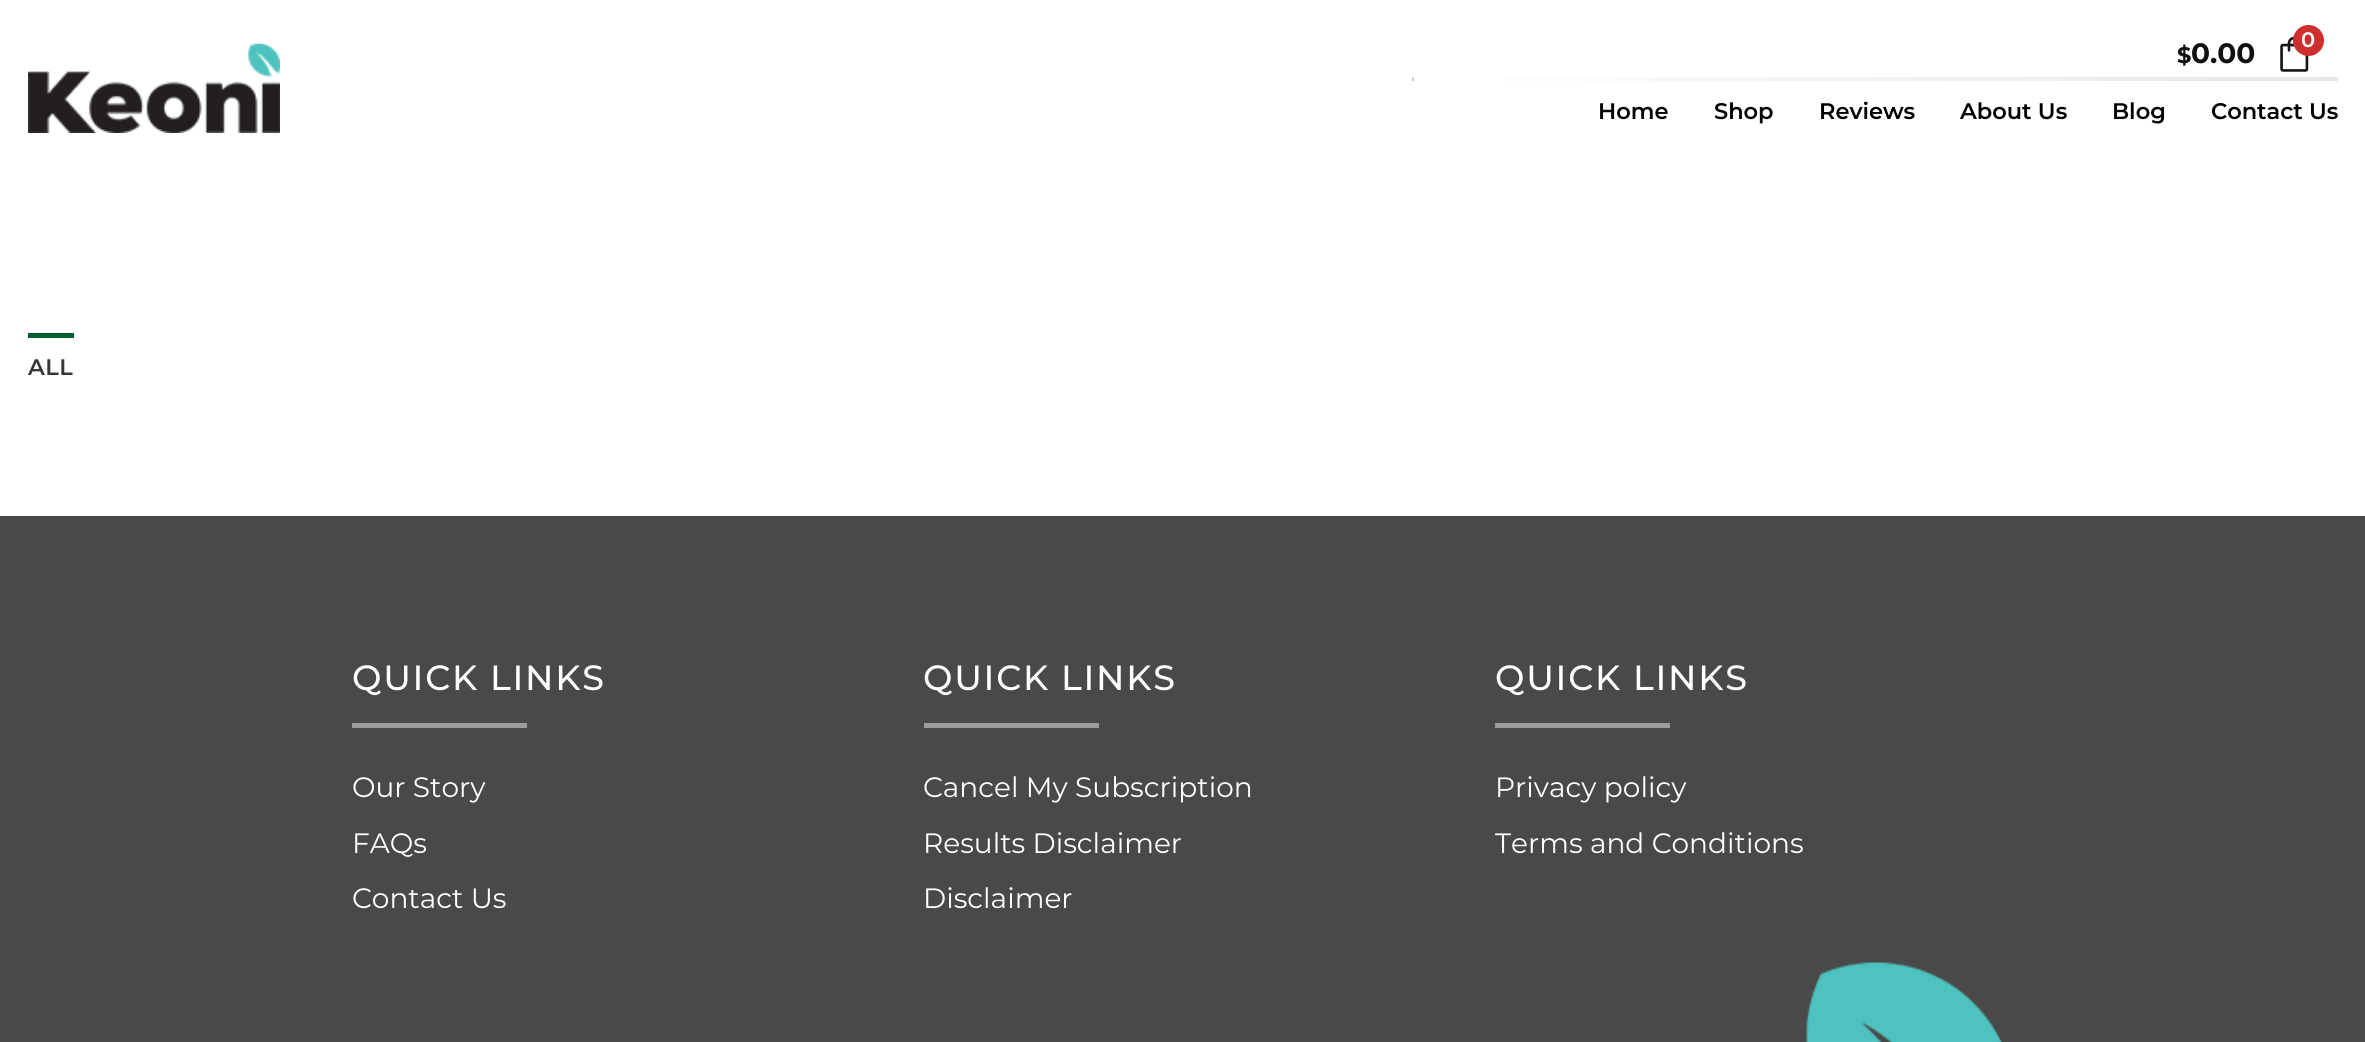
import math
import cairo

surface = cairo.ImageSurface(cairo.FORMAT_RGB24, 2365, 1042)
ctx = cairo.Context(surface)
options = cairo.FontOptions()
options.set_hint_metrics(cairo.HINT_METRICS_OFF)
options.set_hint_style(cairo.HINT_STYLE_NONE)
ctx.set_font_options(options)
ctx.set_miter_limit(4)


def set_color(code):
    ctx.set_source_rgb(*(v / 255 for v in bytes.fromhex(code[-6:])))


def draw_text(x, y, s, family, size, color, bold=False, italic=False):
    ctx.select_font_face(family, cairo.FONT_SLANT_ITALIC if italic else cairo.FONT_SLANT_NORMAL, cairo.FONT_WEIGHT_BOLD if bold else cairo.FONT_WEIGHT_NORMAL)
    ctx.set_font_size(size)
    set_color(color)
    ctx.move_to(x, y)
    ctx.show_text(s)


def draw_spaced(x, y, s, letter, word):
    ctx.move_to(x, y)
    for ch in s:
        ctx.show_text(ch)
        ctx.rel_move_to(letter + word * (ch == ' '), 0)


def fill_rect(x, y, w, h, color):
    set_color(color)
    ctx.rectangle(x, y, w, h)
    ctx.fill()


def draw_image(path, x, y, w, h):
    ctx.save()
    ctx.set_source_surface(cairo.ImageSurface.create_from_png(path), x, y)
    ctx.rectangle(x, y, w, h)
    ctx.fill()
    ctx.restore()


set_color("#ffffff")
ctx.paint()
draw_image("assets/img1.png", 28, 43, 252, 90)
draw_image("assets/img2.png", 2280, 36, 29, 36)
set_color("#cf2e2e")
ctx.arc(2308.5, 40.5, 15.5, 0, 2 * math.pi)
ctx.fill()
draw_text(2301, 47, "0", "Montserrat SemiBold", 21, "#ffffff")
draw_text(2177, 63, "$", "Montserrat", 22.5, "#111111", bold=True)
draw_text(2191, 63, "0.00", "Montserrat", 28, "#111111", bold=True)
gradient = cairo.LinearGradient(1414, 79, 2338, 79)
gradient.add_color_stop_rgba(0, 1, 1, 1, 1)
gradient.add_color_stop_rgba(1, 0.902, 0.902, 0.902, 1)
ctx.set_source(gradient)
ctx.rectangle(1506, 77, 832, 4)
ctx.fill()
fill_rect(1412, 77, 2, 4, "#cfcfcf")
draw_text(1598, 119, "Home", "Montserrat SemiBold", 22.5, "#000000")
draw_text(1714, 119, "Shop", "Montserrat SemiBold", 22.5, "#000000")
draw_text(1819, 119, "Reviews", "Montserrat SemiBold", 22.5, "#000000")
draw_text(1960, 119, "About Us", "Montserrat SemiBold", 22.5, "#000000")
draw_text(2112, 119, "Blog", "Montserrat SemiBold", 22.5, "#000000")
draw_text(2211, 119, "Contact Us", "Montserrat SemiBold", 22.5, "#000000")
fill_rect(28, 333, 46, 5, "#005f32")
set_color("#363636")
draw_spaced(28, 375, "ALL", 0.5, 0)
fill_rect(0, 518, 2365, 524, "#494949")
fill_rect(0, 516, 2365, 2, "#454545")
ctx.select_font_face("Montserrat Medium")
ctx.set_font_size(35)
set_color("#ffffff")
draw_spaced(352, 690, "QUICK LINKS", 1.75, 0)
fill_rect(352, 723, 175, 5, "#9c9c9c")
draw_text(352, 797, "Our Story", "Montserrat", 28, "#ffffff")
draw_text(352, 853, "FAQs", "Montserrat", 28, "#ffffff")
draw_text(352, 908, "Contact Us", "Montserrat", 28, "#ffffff")
ctx.select_font_face("Montserrat Medium")
ctx.set_font_size(35)
draw_spaced(923, 690, "QUICK LINKS", 1.75, 0)
fill_rect(924, 723, 175, 5, "#9c9c9c")
draw_text(923, 797, "Cancel My Subscription", "Montserrat", 28, "#ffffff")
draw_text(923, 853, "Results Disclaimer", "Montserrat", 28, "#ffffff")
draw_text(923, 908, "Disclaimer", "Montserrat", 28, "#ffffff")
ctx.select_font_face("Montserrat Medium")
ctx.set_font_size(35)
draw_spaced(1495, 690, "QUICK LINKS", 1.75, 0)
fill_rect(1495, 723, 175, 5, "#9c9c9c")
draw_text(1495, 797, "Privacy policy", "Montserrat", 28, "#ffffff")
draw_text(1495, 853, "Terms and Conditions", "Montserrat", 28, "#ffffff")
draw_image("assets/img3.png", 1806, 962, 196, 80)
surface.write_to_png("output.png")
